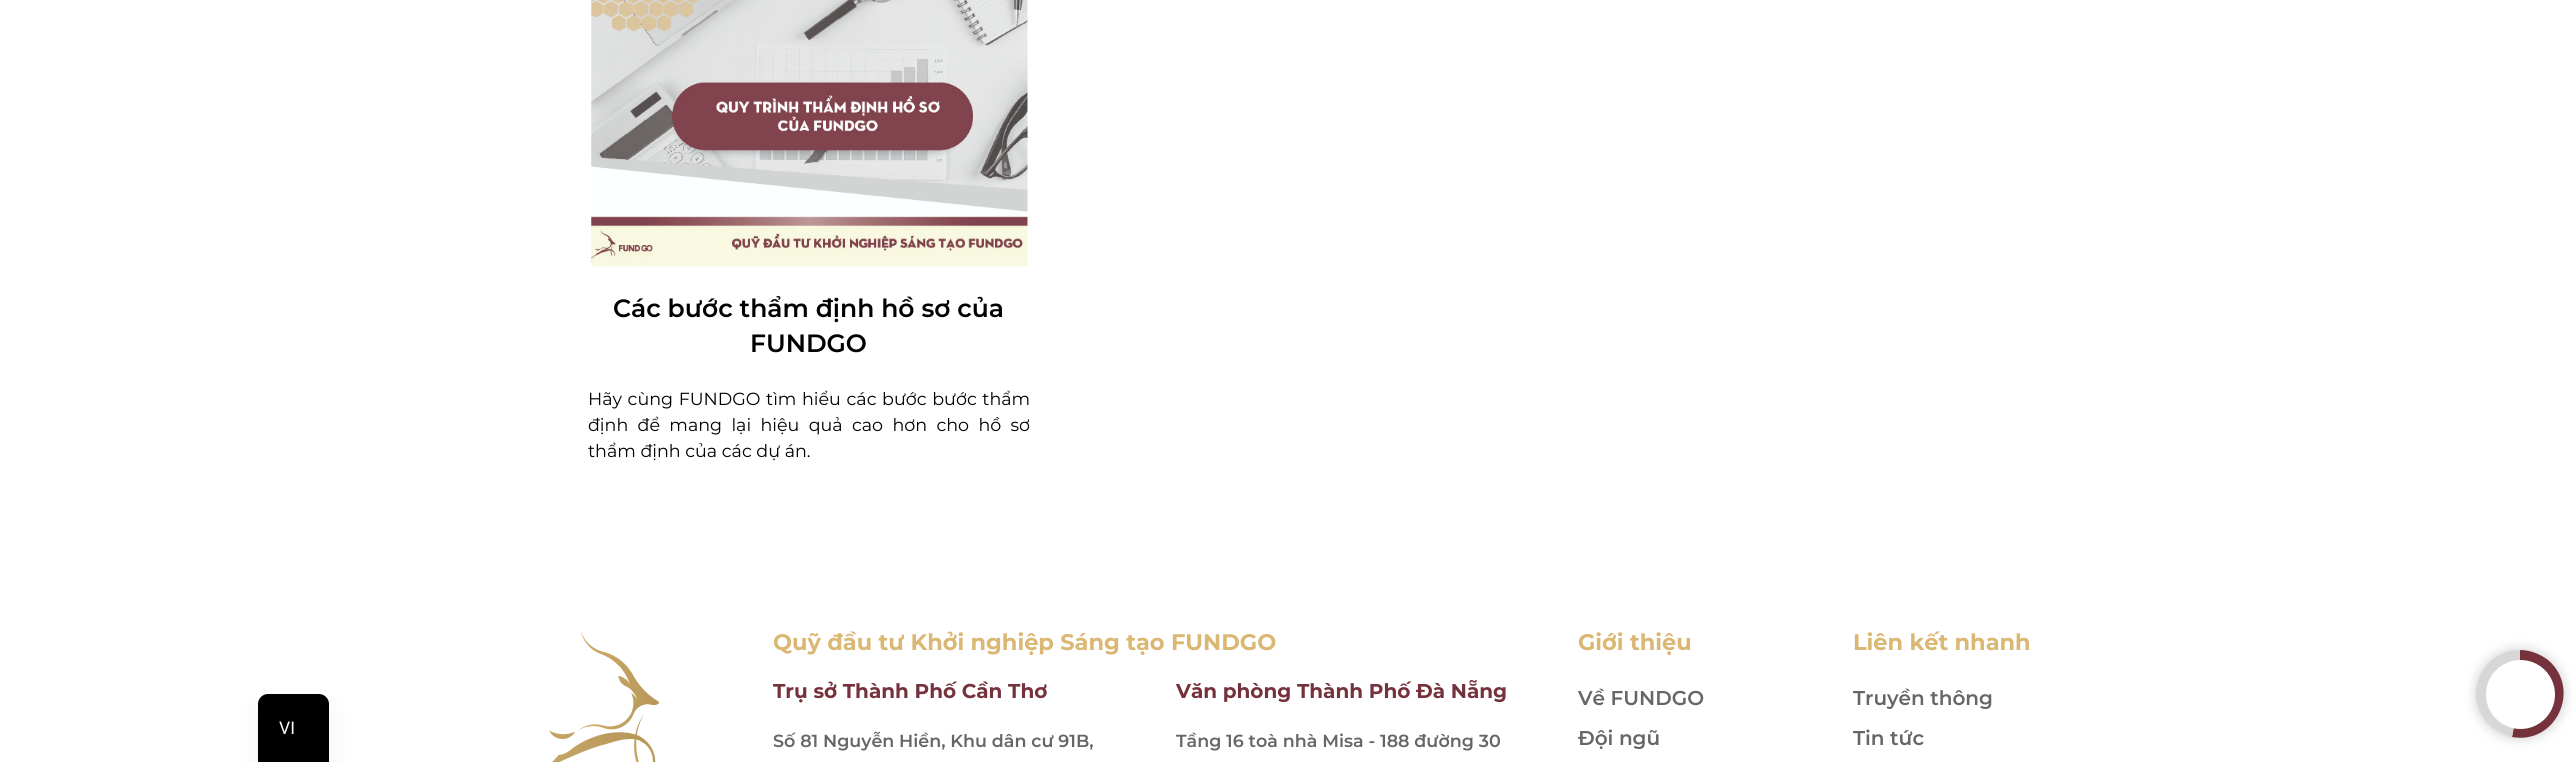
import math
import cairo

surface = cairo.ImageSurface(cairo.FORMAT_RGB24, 2576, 762)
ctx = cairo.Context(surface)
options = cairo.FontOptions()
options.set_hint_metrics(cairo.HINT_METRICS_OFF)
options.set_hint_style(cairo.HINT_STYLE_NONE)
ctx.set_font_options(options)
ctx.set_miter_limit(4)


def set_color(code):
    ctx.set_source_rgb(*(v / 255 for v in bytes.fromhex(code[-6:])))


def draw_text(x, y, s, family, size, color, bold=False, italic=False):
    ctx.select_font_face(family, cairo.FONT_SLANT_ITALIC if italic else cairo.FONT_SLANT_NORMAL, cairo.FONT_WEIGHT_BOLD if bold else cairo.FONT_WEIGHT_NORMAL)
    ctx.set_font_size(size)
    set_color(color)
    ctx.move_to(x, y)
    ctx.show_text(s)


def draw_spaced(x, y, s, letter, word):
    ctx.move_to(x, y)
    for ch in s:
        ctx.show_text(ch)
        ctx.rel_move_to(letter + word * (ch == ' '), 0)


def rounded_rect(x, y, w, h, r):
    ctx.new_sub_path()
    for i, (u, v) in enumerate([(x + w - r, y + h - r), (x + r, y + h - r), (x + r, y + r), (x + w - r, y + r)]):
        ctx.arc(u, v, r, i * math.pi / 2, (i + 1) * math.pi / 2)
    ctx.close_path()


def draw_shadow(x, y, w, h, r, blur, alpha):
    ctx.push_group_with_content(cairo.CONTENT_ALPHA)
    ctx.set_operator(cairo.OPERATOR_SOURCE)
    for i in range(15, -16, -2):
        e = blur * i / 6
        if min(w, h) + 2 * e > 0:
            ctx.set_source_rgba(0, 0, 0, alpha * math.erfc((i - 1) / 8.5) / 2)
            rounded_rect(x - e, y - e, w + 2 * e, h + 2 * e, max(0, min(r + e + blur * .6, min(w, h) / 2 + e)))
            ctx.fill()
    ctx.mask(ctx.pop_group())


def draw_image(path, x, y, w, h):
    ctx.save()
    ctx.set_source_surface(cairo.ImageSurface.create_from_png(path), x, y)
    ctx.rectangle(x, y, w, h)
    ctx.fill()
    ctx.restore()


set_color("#ffffff")
ctx.paint()
draw_image("assets/img1.png", 591, 0, 437, 267)
draw_text(613, 317, "Các bước thẩm định hồ sơ của", "Montserrat SemiBold", 25, "#000000")
draw_text(750, 352, "FUNDGO", "Montserrat SemiBold", 25, "#000000")
ctx.select_font_face("Montserrat")
ctx.set_font_size(17.5)
draw_spaced(588, 405, "Hãy cùng FUNDGO tìm hiểu các bước bước thẩm", 0, 1)
draw_spaced(588, 431, "định để mang lại hiệu quả cao hơn cho hồ sơ", 0, 4.75)
draw_text(588, 457, "thẩm định của các dự án.", "Montserrat", 17.5, "#000000")
set_color("#000000")
draw_shadow(258, 706, 71, 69, 10, 12.5, 0.05)
set_color("#000000")
ctx.new_path()
ctx.move_to(268, 694)
ctx.line_to(319, 694)
ctx.curve_to(324.5, 694, 329, 698.5, 329, 704)
ctx.line_to(329, 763)
ctx.line_to(258, 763)
ctx.line_to(258, 704)
ctx.curve_to(258, 698.5, 262.5, 694, 268, 694)
ctx.close_path()
ctx.fill()
draw_text(279, 734, "VI", "Roboto", 17.5, "#ffffff")
draw_image("assets/img2.png", 549, 630, 110, 132)
draw_text(773, 650, "Quỹ đầu tư Khởi nghiệp Sáng tạo FUNDGO", "Montserrat", 22.5, "#dab772", bold=True)
draw_text(773, 698, "Trụ sở Thành Phố Cần Thơ", "Montserrat", 20, "#75323c", bold=True)
draw_text(773, 747, "Số 81 Nguyễn Hiền, Khu dân cư 91B,", "Montserrat SemiBold", 17.5, "#666666")
draw_text(1176, 698, "Văn phòng Thành Phố Đà Nẵng", "Montserrat", 20, "#75323c", bold=True)
draw_text(1176, 747, "Tầng 16 toà nhà Misa - 188 đường 30", "Montserrat SemiBold", 17.5, "#666666")
draw_text(1578, 650, "Giới thiệu", "Montserrat", 22.5, "#dab772", bold=True)
draw_text(1578, 705, "Về FUNDGO", "Montserrat SemiBold", 20, "#666666")
draw_text(1578, 745, "Đội ngũ", "Montserrat SemiBold", 20, "#666666")
draw_text(1853, 650, "Liên kết nhanh", "Montserrat", 22.5, "#dab772", bold=True)
draw_text(1853, 705, "Truyền thông", "Montserrat SemiBold", 20, "#666666")
draw_text(1853, 745, "Tin tức", "Montserrat SemiBold", 20, "#666666")
set_color("#000000")
draw_shadow(2476, 650, 88, 88, 44, 6, 0.2)
set_color("#75323c")
ctx.new_path()
ctx.move_to(2520, 694)
ctx.line_to(2520, 650)
ctx.curve_to(2530, 650, 2540, 654, 2548, 660)
ctx.curve_to(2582, 689, 2556, 745, 2512, 737)
ctx.close_path()
ctx.fill()
set_color("#d7d7d7")
ctx.new_path()
ctx.move_to(2520, 694)
ctx.line_to(2512, 737)
ctx.curve_to(2490, 732, 2474, 712, 2476, 690)
ctx.curve_to(2479, 667, 2497, 650, 2520, 650)
ctx.close_path()
ctx.fill()
set_color("#ffffff")
ctx.arc(2520.5, 694.5, 34.5, 0, 2 * math.pi)
ctx.fill()
surface.write_to_png("output.png")
